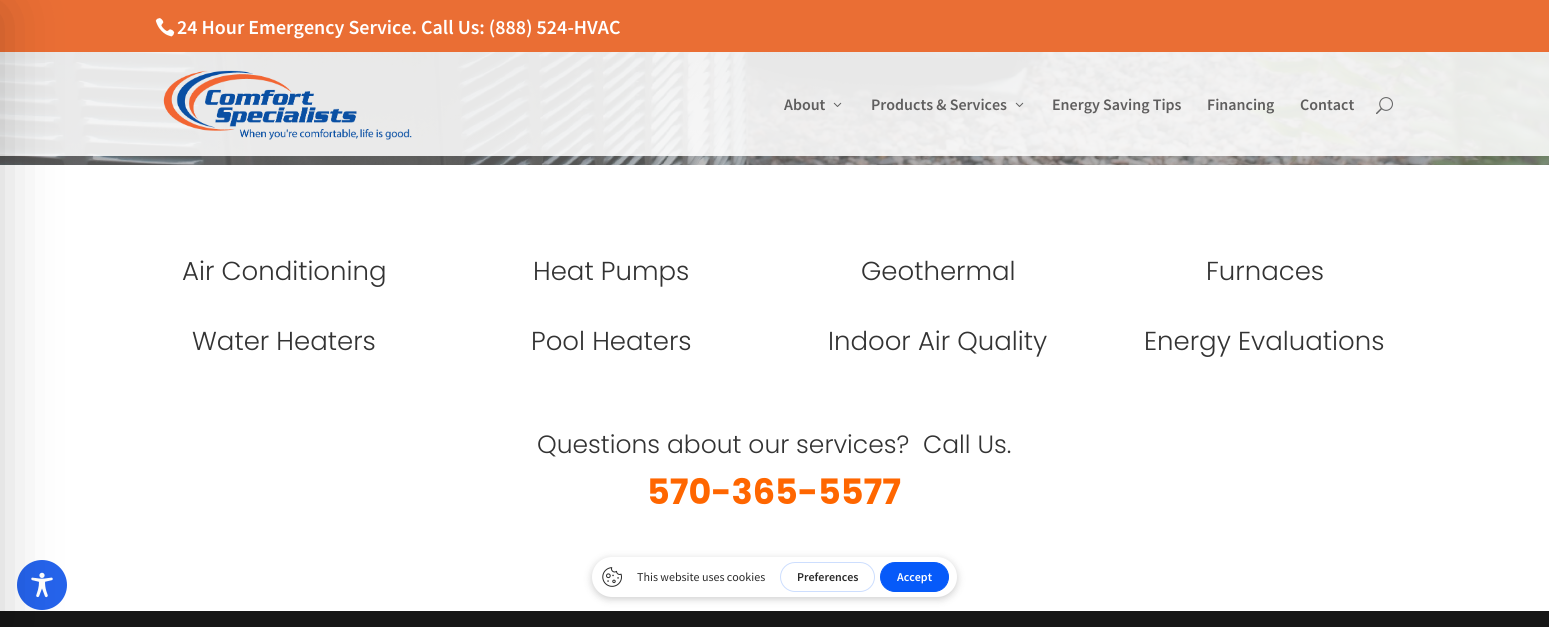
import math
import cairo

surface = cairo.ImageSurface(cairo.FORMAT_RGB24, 1549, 627)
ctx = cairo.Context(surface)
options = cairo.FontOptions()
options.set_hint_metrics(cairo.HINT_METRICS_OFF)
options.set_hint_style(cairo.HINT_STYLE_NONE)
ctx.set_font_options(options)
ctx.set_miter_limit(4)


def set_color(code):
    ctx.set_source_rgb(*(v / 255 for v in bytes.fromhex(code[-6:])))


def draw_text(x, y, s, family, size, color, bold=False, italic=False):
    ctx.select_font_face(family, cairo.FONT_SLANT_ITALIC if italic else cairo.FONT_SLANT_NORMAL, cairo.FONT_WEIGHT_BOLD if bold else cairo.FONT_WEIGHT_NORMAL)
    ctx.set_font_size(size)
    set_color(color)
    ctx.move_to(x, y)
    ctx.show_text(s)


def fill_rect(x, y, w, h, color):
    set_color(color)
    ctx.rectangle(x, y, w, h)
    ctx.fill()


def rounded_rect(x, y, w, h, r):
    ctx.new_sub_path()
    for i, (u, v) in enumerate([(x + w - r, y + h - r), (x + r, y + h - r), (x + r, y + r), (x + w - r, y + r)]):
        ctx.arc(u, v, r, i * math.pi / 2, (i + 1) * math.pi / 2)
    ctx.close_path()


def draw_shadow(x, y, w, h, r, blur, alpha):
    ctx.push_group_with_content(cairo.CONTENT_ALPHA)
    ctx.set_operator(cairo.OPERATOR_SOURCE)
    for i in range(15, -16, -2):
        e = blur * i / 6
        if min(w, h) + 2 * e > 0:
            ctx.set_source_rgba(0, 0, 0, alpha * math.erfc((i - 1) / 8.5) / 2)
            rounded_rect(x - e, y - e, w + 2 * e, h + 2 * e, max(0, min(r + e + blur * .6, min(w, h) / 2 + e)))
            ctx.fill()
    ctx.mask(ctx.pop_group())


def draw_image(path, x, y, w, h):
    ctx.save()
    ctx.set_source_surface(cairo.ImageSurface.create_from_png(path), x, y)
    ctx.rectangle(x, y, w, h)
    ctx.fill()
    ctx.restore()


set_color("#ffffff")
ctx.paint()
fill_rect(0, 0, 1549, 52, "#ea6e34")
draw_image("assets/img6.png", 0, 52, 1549, 113)
ctx.set_source_rgba(1, 1, 1, 0.87)
ctx.rectangle(0, 52, 1549, 104)
ctx.fill()
fill_rect(0, 611, 1549, 16, "#161616")
set_color("#2563eb")
ctx.arc(42, 585, 25, 0, 2 * math.pi)
ctx.fill()
draw_image("assets/img7.png", 31, 572, 22, 26)
set_color("#000000")
draw_shadow(-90, 10, 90, 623, 0, 30, 0.2)
draw_image("assets/img1.png", 155, 18, 20, 19)
draw_text(177, 34, "24 Hour Emergency Service. Call Us: (888) 524-HVAC", "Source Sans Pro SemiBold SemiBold", 20, "#ffffff")
draw_image("assets/img2.png", 163, 70, 249, 70)
draw_text(784, 110, "About", "Source Sans Pro SemiBold SemiBold", 16, "#5f5e5e")
draw_image("assets/img3.png", 833, 102, 9, 5)
draw_text(871, 110, "Products & Services", "Source Sans Pro SemiBold SemiBold", 16, "#5f5e5e")
draw_image("assets/img4.png", 1015, 102, 9, 5)
draw_text(1052, 110, "Energy Saving Tips", "Source Sans Pro SemiBold SemiBold", 16, "#5f5e5e")
draw_text(1207, 110, "Financing", "Source Sans Pro SemiBold SemiBold", 16, "#5f5e5e")
draw_text(1300, 110, "Contact", "Source Sans Pro SemiBold SemiBold", 16, "#5f5e5e")
draw_image("assets/img5.png", 1376, 97, 17, 18)
draw_text(182, 280, "Air Conditioning", "Poppins Light", 26, "#333333")
draw_text(192, 350, "Water Heaters", "Poppins Light", 26, "#333333")
draw_text(533, 280, "Heat Pumps", "Poppins Light", 26, "#333333")
draw_text(531, 350, "Pool Heaters", "Poppins Light", 26, "#333333")
draw_text(861, 280, "Geothermal", "Poppins Light", 26, "#333333")
draw_text(828, 350, "Indoor Air Quality", "Poppins Light", 26, "#333333")
draw_text(1206, 280, "Furnaces", "Poppins Light", 26, "#333333")
draw_text(1144, 350, "Energy Evaluations", "Poppins Light", 26, "#333333")
draw_text(537, 453, "Questions about our services?  Call Us.", "Poppins Light", 25, "#333333")
draw_text(647, 504, "570-365-5577", "Poppins", 35, "#ff6600", bold=True)
set_color("#000000")
draw_shadow(592, 559, 365, 40, 20, 4, 0.2)
set_color("#ffffff")
rounded_rect(592, 557, 365, 40, 20)
ctx.fill()
draw_image("assets/img8.png", 602, 567, 20, 20)
draw_text(637, 581, "This website uses cookies", "Source Sans Pro", 12, "#2a2a2a")
rounded_rect(780.5, 562.5, 94, 29, 14.5)
set_color("#cddefe")
ctx.set_line_width(1)
ctx.stroke()
draw_text(797, 581, "Preferences", "Source Sans Pro SemiBold SemiBold", 12, "#2a2a2a")
set_color("#065af9")
rounded_rect(880.5, 562.5, 68, 29, 14.5)
ctx.fill_preserve()
ctx.stroke()
draw_text(897, 581, "Accept", "Source Sans Pro SemiBold SemiBold", 12, "#ffffff")
surface.write_to_png("output.png")
